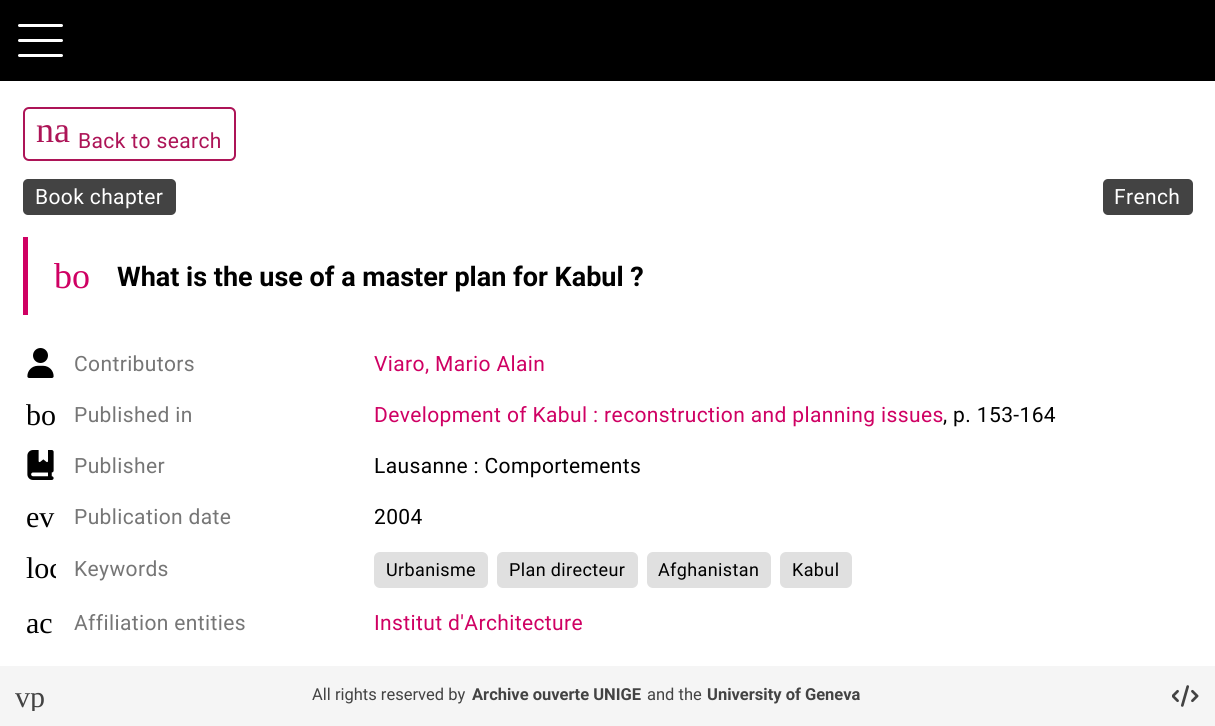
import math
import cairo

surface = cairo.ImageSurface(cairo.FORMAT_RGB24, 1215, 726)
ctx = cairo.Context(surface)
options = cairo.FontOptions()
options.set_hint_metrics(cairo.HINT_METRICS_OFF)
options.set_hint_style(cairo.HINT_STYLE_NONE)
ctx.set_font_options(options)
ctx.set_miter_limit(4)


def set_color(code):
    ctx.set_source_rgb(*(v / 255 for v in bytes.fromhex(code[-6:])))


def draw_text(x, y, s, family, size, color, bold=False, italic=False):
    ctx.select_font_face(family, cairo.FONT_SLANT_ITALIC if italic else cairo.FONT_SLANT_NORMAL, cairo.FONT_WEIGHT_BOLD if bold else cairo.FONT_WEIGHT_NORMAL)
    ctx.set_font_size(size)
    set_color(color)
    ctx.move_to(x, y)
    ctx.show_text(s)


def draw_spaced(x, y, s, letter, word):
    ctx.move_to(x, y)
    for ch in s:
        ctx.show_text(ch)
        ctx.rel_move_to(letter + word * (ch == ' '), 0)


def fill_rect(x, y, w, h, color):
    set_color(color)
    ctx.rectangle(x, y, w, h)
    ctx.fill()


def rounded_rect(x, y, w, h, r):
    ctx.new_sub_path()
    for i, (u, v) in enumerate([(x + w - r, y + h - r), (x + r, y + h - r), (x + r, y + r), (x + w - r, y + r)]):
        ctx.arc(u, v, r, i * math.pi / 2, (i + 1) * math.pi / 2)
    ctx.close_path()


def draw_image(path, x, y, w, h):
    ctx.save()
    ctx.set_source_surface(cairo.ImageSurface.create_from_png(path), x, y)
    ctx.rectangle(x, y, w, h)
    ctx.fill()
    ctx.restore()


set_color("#ffffff")
ctx.paint()
fill_rect(0, 0, 1215, 81, "#000000")
set_color("#ffffff")
rounded_rect(18, 24, 45, 3, 1.5)
ctx.fill()
rounded_rect(18, 39, 45, 3, 1.5)
ctx.fill()
rounded_rect(18, 54, 45, 3, 1.5)
ctx.fill()
rounded_rect(24, 108, 211, 52, 5)
set_color("#ad1457")
ctx.stroke()
draw_text(36, 142, "na", "Liberation Serif", 36, "#ad1457")
ctx.select_font_face("Roboto")
ctx.set_font_size(21)
draw_spaced(78, 148, "Back to search", 0.38, 0)
set_color("#434343")
rounded_rect(23, 179, 153, 36, 5)
ctx.fill()
set_color("#ffffff")
draw_spaced(35, 204, "Book chapter", 0.38, 0)
set_color("#434343")
rounded_rect(1103, 179, 90, 36, 5)
ctx.fill()
set_color("#ffffff")
draw_spaced(1114, 204, "French", 0.38, 0)
fill_rect(23, 237, 5, 78, "#cf0063")
draw_text(54, 288, "bo", "Liberation Serif", 36, "#cf0063")
draw_text(117, 286, "What is the use of a master plan for Kabul ?", "Roboto", 27, "#000000", bold=True)
draw_image("assets/img1.png", 27, 348, 27, 30)
ctx.select_font_face("Roboto")
ctx.set_font_size(21)
set_color("#767676")
draw_spaced(74, 371, "Contributors", 0.38, 0)
set_color("#cf0063")
draw_spaced(374, 371, "Viaro, Mario Alain", 0.38, 0)
draw_text(26, 425, "bo", "Liberation Serif", 30, "#000000")
ctx.select_font_face("Roboto")
ctx.set_font_size(21)
set_color("#767676")
draw_spaced(74, 422, "Published in", 0.38, 0)
set_color("#cf0063")
draw_spaced(374, 422, "Development of Kabul : reconstruction and planning issues", 0.38, 0)
set_color("#000000")
draw_spaced(943, 422, ", p. 153-164", 0.38, 0)
draw_image("assets/img2.png", 27, 450, 27, 30)
set_color("#767676")
draw_spaced(74, 473, "Publisher", 0.38, 0)
set_color("#000000")
draw_spaced(374, 473, "Lausanne : Comportements", 0.38, 0)
draw_text(26, 527, "ev", "Liberation Serif", 30, "#000000")
ctx.select_font_face("Roboto")
ctx.set_font_size(21)
set_color("#767676")
draw_spaced(74, 524, "Publication date", 0.38, 0)
set_color("#000000")
draw_spaced(374, 524, "2004", 0.38, 0)
ctx.save()
ctx.rectangle(26, 552, 30, 30)
ctx.clip()
draw_text(26, 578, "loc", "Liberation Serif", 30, "#000000")
ctx.restore()
set_color("#767676")
draw_spaced(74, 576, "Keywords", 0.38, 0)
set_color("#e0e0e0")
rounded_rect(374, 552, 114, 36, 6)
ctx.fill()
ctx.set_font_size(18)
set_color("#000000")
draw_spaced(386, 576, "Urbanisme", 0.38, 0)
set_color("#e0e0e0")
rounded_rect(497, 552, 141, 36, 6)
ctx.fill()
set_color("#000000")
draw_spaced(509, 576, "Plan directeur", 0.38, 0)
set_color("#e0e0e0")
rounded_rect(647, 552, 124, 36, 6)
ctx.fill()
set_color("#000000")
draw_spaced(658, 576, "Afghanistan", 0.38, 0)
set_color("#e0e0e0")
rounded_rect(780, 552, 72, 36, 6)
ctx.fill()
set_color("#000000")
draw_spaced(792, 576, "Kabul", 0.38, 0)
draw_text(26, 633, "ac", "Liberation Serif", 30, "#000000")
ctx.select_font_face("Roboto")
ctx.set_font_size(21)
set_color("#767676")
draw_spaced(74, 630, "Affiliation entities", 0.38, 0)
set_color("#cf0063")
draw_spaced(374, 630, "Institut d'Architecture", 0.38, 0)
fill_rect(0, 666, 1215, 60, "#f5f5f5")
ctx.save()
ctx.rectangle(15, 681, 30, 30)
ctx.clip()
draw_text(15, 707, "vp", "Liberation Serif", 30, "#434343")
ctx.restore()
draw_text(312, 700, "All rights reserved by", "Roboto", 16.5, "#434343")
draw_text(472, 700, "Archive ouverte UNIGE", "Roboto", 16.5, "#434343", bold=True)
draw_text(647, 700, "and the", "Roboto", 16.5, "#434343")
draw_text(707, 700, "University of Geneva", "Roboto", 16.5, "#434343", bold=True)
draw_image("assets/img3.png", 1172, 685, 27, 22)
surface.write_to_png("output.png")
